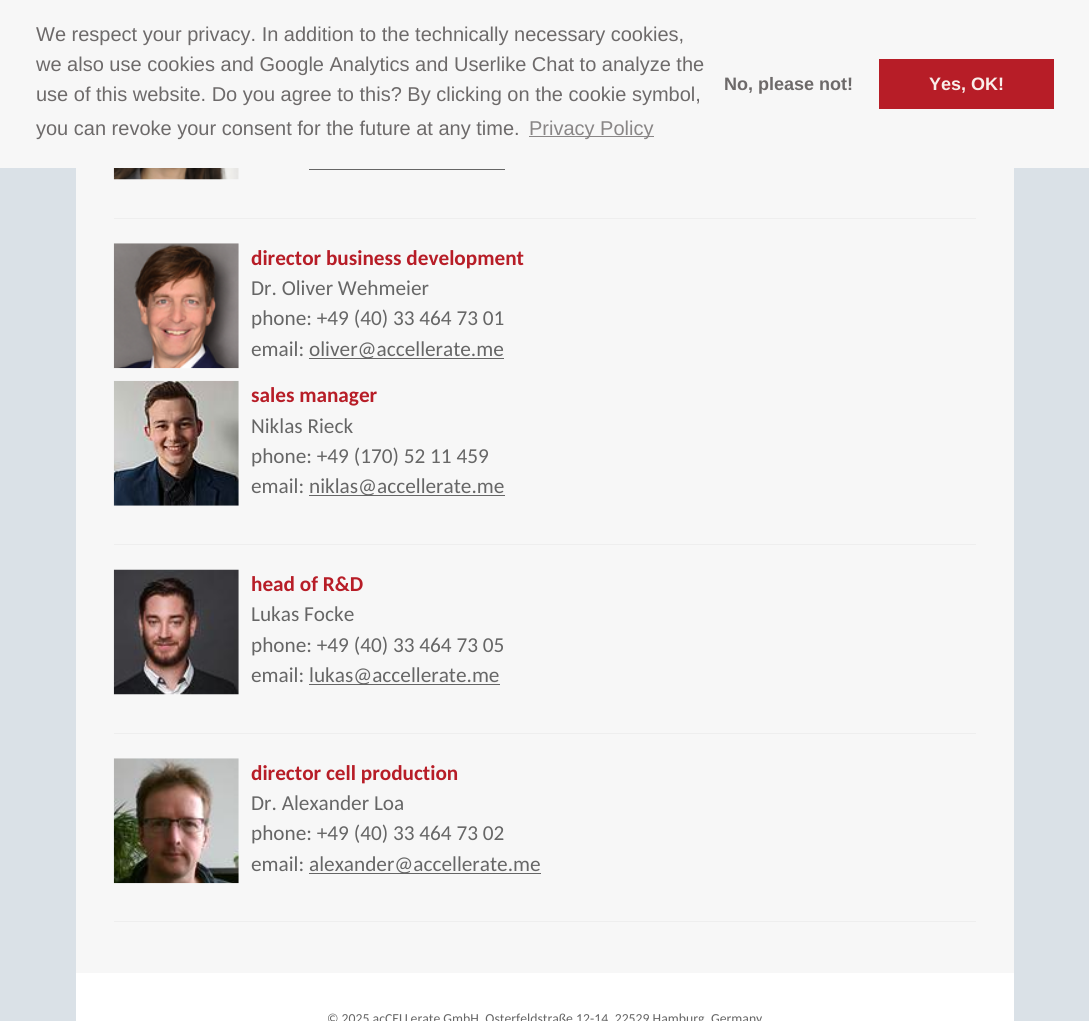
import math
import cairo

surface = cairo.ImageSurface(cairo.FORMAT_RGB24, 1089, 1021)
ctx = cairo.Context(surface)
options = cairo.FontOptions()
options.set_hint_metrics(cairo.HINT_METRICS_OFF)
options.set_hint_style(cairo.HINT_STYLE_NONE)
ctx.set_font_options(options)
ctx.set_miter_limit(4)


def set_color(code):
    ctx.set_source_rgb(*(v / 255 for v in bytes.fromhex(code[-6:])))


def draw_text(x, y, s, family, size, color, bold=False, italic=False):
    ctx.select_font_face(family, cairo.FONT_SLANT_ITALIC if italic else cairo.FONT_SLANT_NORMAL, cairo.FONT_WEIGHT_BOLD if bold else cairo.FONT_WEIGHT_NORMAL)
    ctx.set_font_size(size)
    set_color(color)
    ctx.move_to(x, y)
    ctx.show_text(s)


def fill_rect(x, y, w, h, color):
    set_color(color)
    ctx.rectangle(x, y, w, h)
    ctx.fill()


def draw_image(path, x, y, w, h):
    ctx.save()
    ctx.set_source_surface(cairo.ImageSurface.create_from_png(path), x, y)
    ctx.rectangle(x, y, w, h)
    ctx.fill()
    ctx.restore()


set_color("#dae1e7")
ctx.paint()
fill_rect(0, 0, 1089, 168, "#f7f7f7")
draw_text(36, 41, "We respect your privacy. In addition to the technically necessary cookies,", "Liberation Sans", 20, "#6d6a6a")
draw_text(36, 71, "we also use cookies and Google Analytics and Userlike Chat to analyze the", "Liberation Sans", 20, "#6d6a6a")
draw_text(36, 101, "use of this website. Do you agree to this? By clicking on the cookie symbol,", "Liberation Sans", 20, "#6d6a6a")
draw_text(36, 135, "you can revoke your consent for the future at any time.", "Liberation Sans", 20, "#6d6a6a")
fill_rect(529, 136, 125, 1, "#898686")
draw_text(529, 135, "Privacy Policy", "Liberation Sans", 20, "#898686")
draw_text(724, 90, "No, please not!", "Liberation Sans", 18, "#6d6a6a", bold=True)
fill_rect(879, 59, 175, 50, "#b71d27")
draw_text(929, 90, "Yes, OK!", "Liberation Sans", 18, "#f9eeea", bold=True)
fill_rect(76, 973, 938, 48, "#ffffff")
fill_rect(76, 168, 938, 805, "#f7f7f7")
draw_image("assets/img1.png", 113, 168, 126, 12)
fill_rect(309, 169, 196, 1, "#666666")
fill_rect(114, 218, 862, 1, "#eeeeee")
draw_image("assets/img2.png", 113, 243, 126, 126)
draw_text(251, 265, "director business development", "Carlito", 21.25, "#b71d27", bold=True)
draw_text(251, 295, "Dr. Oliver Wehmeier", "Carlito", 21.25, "#666666")
draw_text(251, 325, "phone: +49 (40) 33 464 73 01", "Carlito", 21.25, "#666666")
draw_text(251, 356, "email:", "Carlito", 21.25, "#666666")
fill_rect(309, 358, 195, 1, "#666666")
draw_text(309, 356, "oliver@accellerate.me", "Carlito", 21.25, "#666666")
draw_image("assets/img3.png", 113, 380, 126, 126)
draw_text(251, 402, "sales manager", "Carlito", 21.25, "#b71d27", bold=True)
draw_text(251, 433, "Niklas Rieck", "Carlito", 21.25, "#666666")
draw_text(251, 463, "phone: +49 (170) 52 11 459", "Carlito", 21.25, "#666666")
draw_text(251, 493, "email:", "Carlito", 21.25, "#666666")
fill_rect(309, 495, 196, 1, "#666666")
draw_text(309, 493, "niklas@accellerate.me", "Carlito", 21.25, "#666666")
fill_rect(114, 544, 862, 1, "#eeeeee")
draw_image("assets/img4.png", 113, 569, 126, 126)
draw_text(251, 591, "head of R&D", "Carlito", 21.25, "#b71d27", bold=True)
draw_text(251, 621, "Lukas Focke", "Carlito", 21.25, "#666666")
draw_text(251, 652, "phone: +49 (40) 33 464 73 05", "Carlito", 21.25, "#666666")
draw_text(251, 682, "email:", "Carlito", 21.25, "#666666")
fill_rect(309, 684, 191, 1, "#666666")
draw_text(309, 682, "lukas@accellerate.me", "Carlito", 21.25, "#666666")
fill_rect(114, 733, 862, 1, "#eeeeee")
draw_image("assets/img5.png", 113, 758, 126, 126)
draw_text(251, 780, "director cell production", "Carlito", 21.25, "#b71d27", bold=True)
draw_text(251, 810, "Dr. Alexander Loa", "Carlito", 21.25, "#666666")
draw_text(251, 840, "phone: +49 (40) 33 464 73 02", "Carlito", 21.25, "#666666")
draw_text(251, 871, "email:", "Carlito", 21.25, "#666666")
fill_rect(309, 873, 232, 1, "#666666")
draw_text(309, 871, "alexander@accellerate.me", "Carlito", 21.25, "#666666")
fill_rect(114, 921, 862, 1, "#eeeeee")
draw_text(327, 1023, "© 2025 acCELLerate GmbH, Osterfeldstraße 12-14, 22529 Hamburg, Germany", "Carlito", 13.75, "#666666")
surface.write_to_png("output.png")
